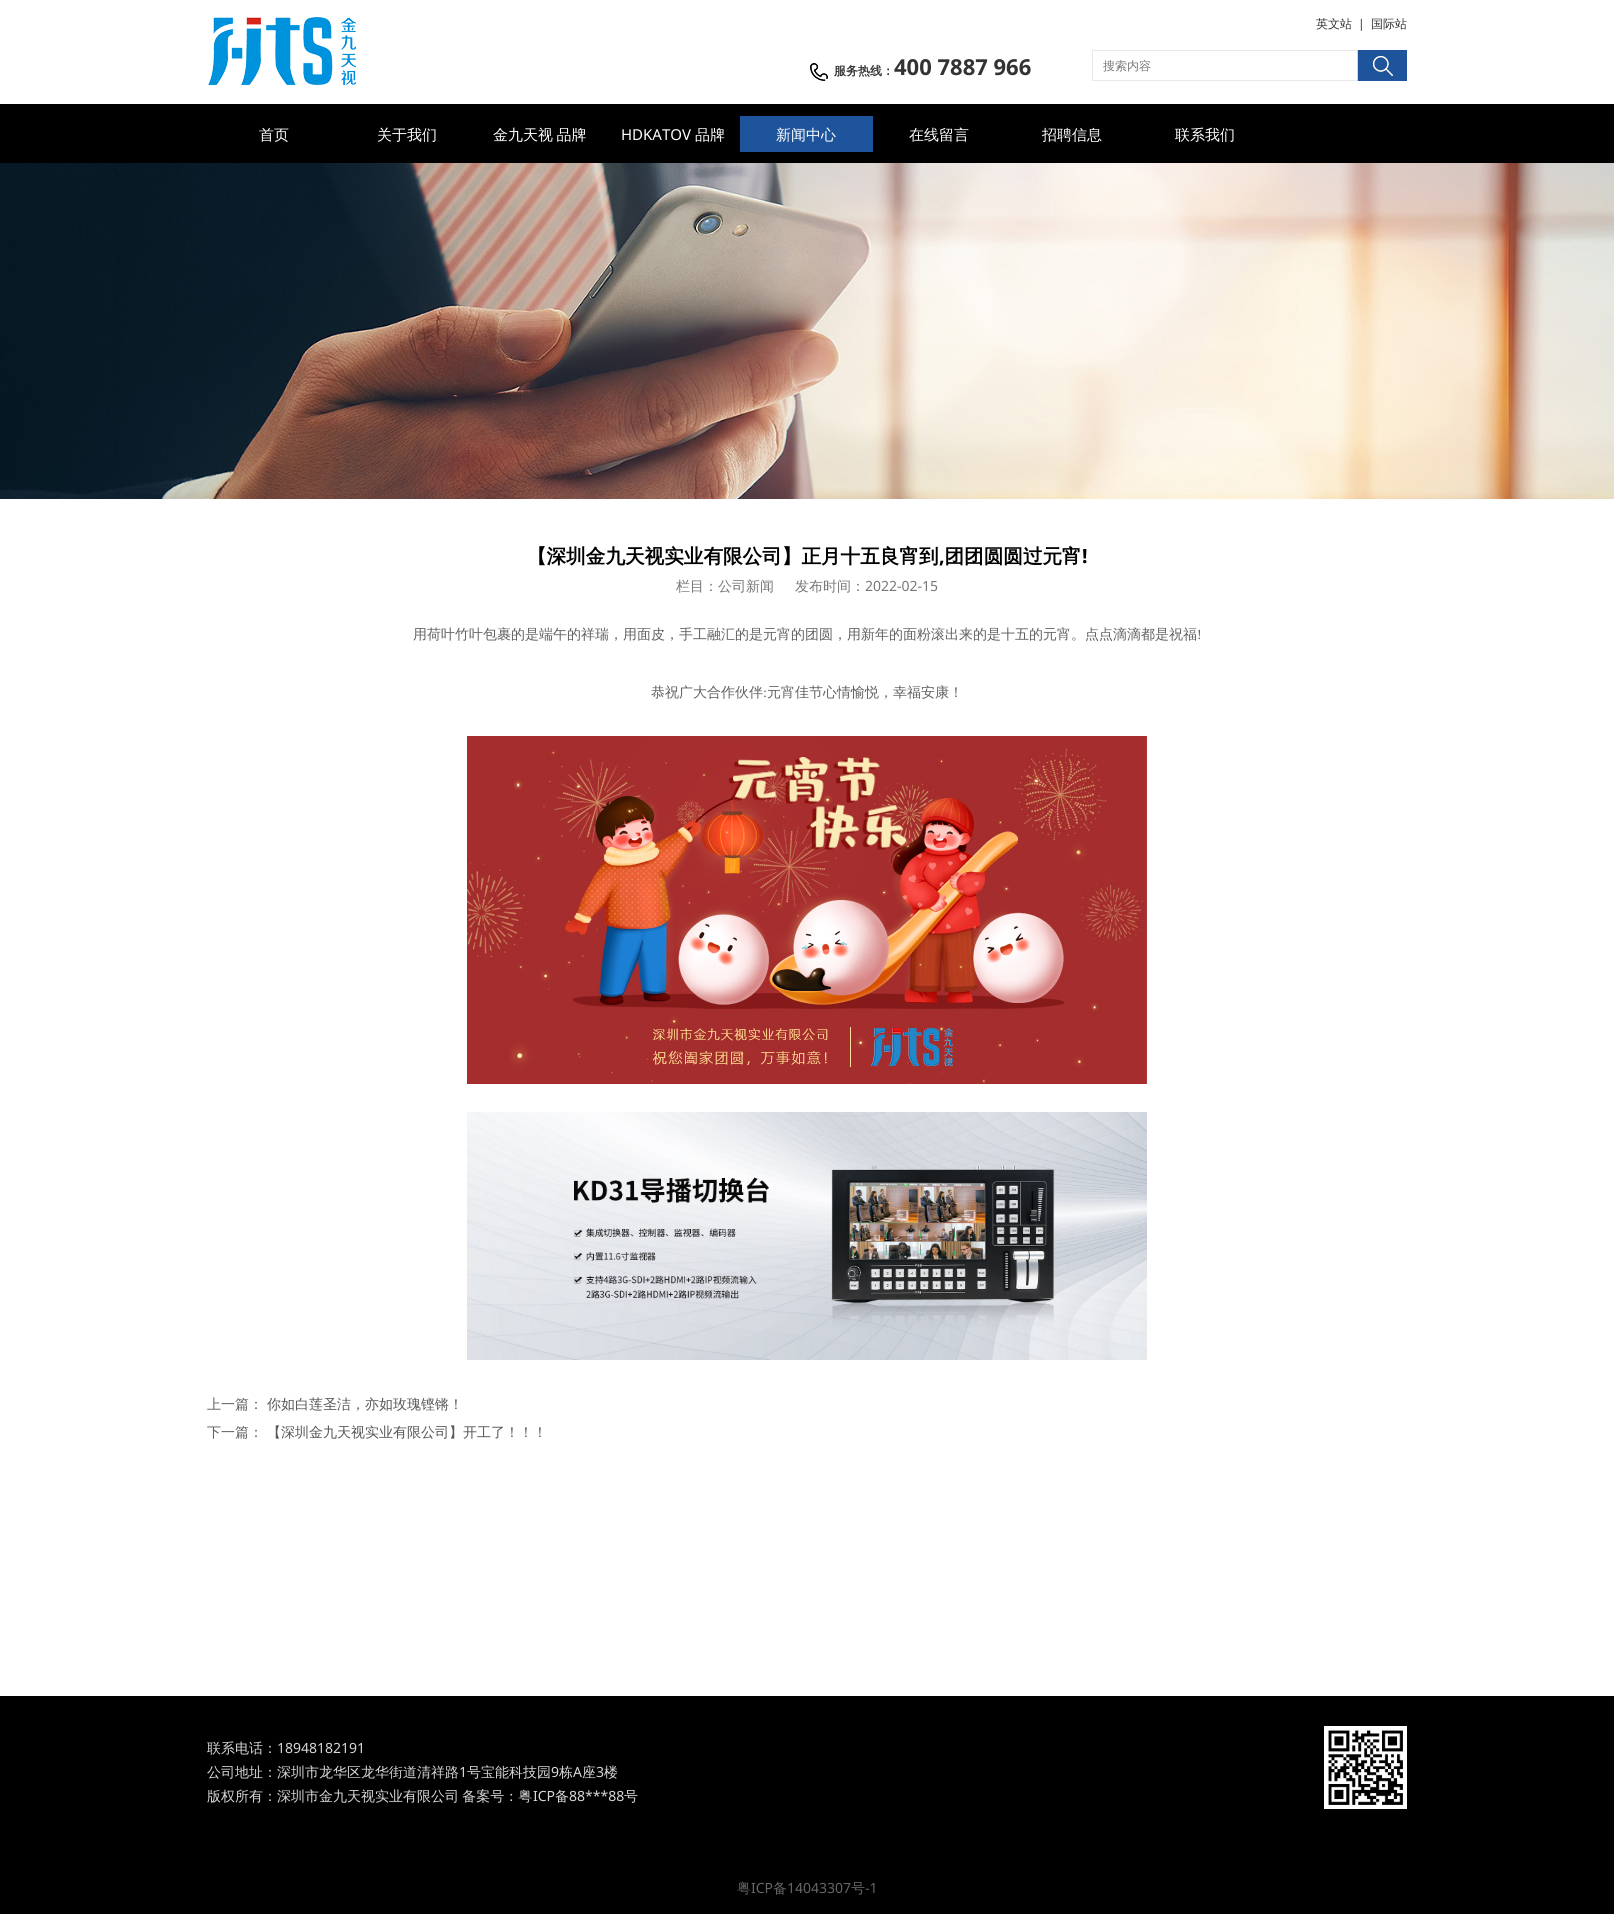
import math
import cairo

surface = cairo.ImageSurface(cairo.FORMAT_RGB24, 1614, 1920)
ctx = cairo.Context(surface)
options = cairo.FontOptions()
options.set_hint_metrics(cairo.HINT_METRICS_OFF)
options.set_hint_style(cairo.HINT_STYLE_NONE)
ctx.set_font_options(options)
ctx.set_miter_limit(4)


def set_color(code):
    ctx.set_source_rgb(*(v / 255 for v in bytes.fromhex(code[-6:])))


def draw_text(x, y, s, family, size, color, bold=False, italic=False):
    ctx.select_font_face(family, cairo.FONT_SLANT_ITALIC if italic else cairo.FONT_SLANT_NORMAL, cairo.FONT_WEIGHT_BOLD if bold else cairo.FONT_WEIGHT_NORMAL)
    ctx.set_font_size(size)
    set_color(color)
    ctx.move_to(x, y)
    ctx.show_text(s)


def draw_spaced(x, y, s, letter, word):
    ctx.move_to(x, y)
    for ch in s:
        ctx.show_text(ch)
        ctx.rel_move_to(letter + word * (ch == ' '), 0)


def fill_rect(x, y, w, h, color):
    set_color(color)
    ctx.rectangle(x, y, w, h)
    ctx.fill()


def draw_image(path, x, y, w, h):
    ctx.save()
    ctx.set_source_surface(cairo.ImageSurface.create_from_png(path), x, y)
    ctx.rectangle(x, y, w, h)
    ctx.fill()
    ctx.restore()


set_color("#ffffff")
ctx.paint()
draw_image("assets/img1.png", 208, 17, 148, 68)
draw_text(1316, 28, "英文站", "WenQuanYi Zen Hei Medium", 12, "#333333")
draw_text(1358, 28, "|", "Noto Sans", 12, "#333333")
draw_text(1371, 28, "国际站", "WenQuanYi Zen Hei Medium", 12, "#333333")
draw_image("assets/img2.png", 810, 63, 18, 18)
draw_text(834, 75, "服务热线：", "WenQuanYi Zen Hei", 12, "#333333", bold=True)
draw_text(894, 75, "400 7887 966", "Noto Sans", 22, "#333333", bold=True)
ctx.rectangle(1092.5, 50.5, 314, 30)
set_color("#e9e9e9")
ctx.set_line_width(1)
ctx.stroke()
draw_text(1103, 70, "搜索内容", "WenQuanYi Zen Hei Medium", 12, "#777777")
fill_rect(1358, 50, 49, 31, "#1e549c")
draw_image("assets/img3.png", 1373, 56, 20, 20)
fill_rect(1357, 50, 1, 31, "#d3d3d3")
draw_image("assets/img4.png", 1373, 56, 20, 20)
fill_rect(0, 104, 1614, 59, "#000000")
draw_text(259, 140, "首页", "WenQuanYi Zen Hei Medium", 15, "#ffffff")
draw_text(377, 140, "关于我们", "WenQuanYi Zen Hei Medium", 15, "#ffffff")
draw_spaced(493, 140, "金九天视 品牌", 0, -1)
draw_text(621, 140, "HDKATOV", "Noto Sans", 15, "#ffffff")
draw_text(695, 140, "品牌", "WenQuanYi Zen Hei Medium", 15, "#ffffff")
fill_rect(740, 116, 133, 36, "#1e549c")
draw_text(776, 140, "新闻中心", "WenQuanYi Zen Hei Medium", 15, "#ffffff")
draw_text(909, 140, "在线留言", "WenQuanYi Zen Hei Medium", 15, "#ffffff")
draw_text(1042, 140, "招聘信息", "WenQuanYi Zen Hei Medium", 15, "#ffffff")
draw_text(1175, 140, "联系我们", "WenQuanYi Zen Hei Medium", 15, "#ffffff")
draw_image("assets/img5.png", 0, 163, 1614, 336)
draw_text(527, 563, "【深圳金九天视实业有限公司】正月十五良宵到 团团圆圆过元宵", "WenQuanYi Zen Hei", 19.6, "#000000", bold=True)
draw_text(1082, 563, "!", "Noto Sans", 19.6, "#000000", bold=True)
draw_text(939, 563, ",", "Noto Sans", 19.6, "#000000", bold=True)
draw_text(676, 591, "栏目：公司新闻", "WenQuanYi Zen Hei Medium", 14, "#777777")
draw_text(795, 591, "发布时间：", "WenQuanYi Zen Hei Medium", 14, "#777777")
draw_text(865, 591, "2022-02-15", "Noto Sans", 14, "#777777")
draw_text(413, 639, "用荷叶竹叶包裹的是端午的祥瑞，用面皮，手工融汇的是元宵的团圆，用新年的面粉滚出来的是十五的元宵。点点滴滴都是祝福", "WenQuanYi Zen Hei Medium", 14, "#606060")
draw_text(1197, 639, "!", "Liberation Serif", 14, "#606060")
draw_text(651, 697, "恭祝广大合作伙伴", "WenQuanYi Zen Hei Medium", 14, "#606060")
draw_text(763, 697, ":", "Liberation Serif", 14, "#606060")
draw_text(767, 697, "元宵佳节心情愉悦，幸福安康！", "WenQuanYi Zen Hei Medium", 14, "#606060")
draw_image("assets/img6.png", 467, 736, 680, 348)
draw_image("assets/img7.png", 467, 1112, 680, 248)
draw_text(207, 1409, "上一篇：", "WenQuanYi Zen Hei Medium", 14, "#606060")
draw_text(267, 1409, "你如白莲圣洁，亦如玫瑰铿锵！", "WenQuanYi Zen Hei Medium", 14, "#565656")
draw_text(207, 1437, "下一篇：", "WenQuanYi Zen Hei Medium", 14, "#606060")
draw_text(267, 1437, "【深圳金九天视实业有限公司】开工了！！！", "WenQuanYi Zen Hei Medium", 14, "#565656")
fill_rect(0, 1696, 1614, 218, "#000000")
draw_text(207, 1753, "联系电话：", "WenQuanYi Zen Hei Medium", 14, "#d8d8d8")
draw_text(277, 1753, "18948182191", "Noto Sans", 14, "#d8d8d8")
draw_text(207, 1777, "公司地址：深圳市龙华区龙华街道清祥路", "WenQuanYi Zen Hei Medium", 14, "#d8d8d8")
draw_text(459, 1777, "1", "Noto Sans", 14, "#d8d8d8")
draw_text(467, 1777, "号宝能科技园", "WenQuanYi Zen Hei Medium", 14, "#d8d8d8")
draw_text(551, 1777, "9", "Noto Sans", 14, "#d8d8d8")
draw_text(559, 1777, "栋", "WenQuanYi Zen Hei Medium", 14, "#d8d8d8")
draw_text(573, 1777, "A", "Noto Sans", 14, "#d8d8d8")
draw_text(582, 1777, "座", "WenQuanYi Zen Hei Medium", 14, "#d8d8d8")
draw_text(596, 1777, "3", "Noto Sans", 14, "#d8d8d8")
draw_text(604, 1777, "楼", "WenQuanYi Zen Hei Medium", 14, "#d8d8d8")
draw_spaced(207, 1801, "版权所有：深圳市金九天视实业有限公司 备案号：粤", 0, -1)
draw_text(533, 1801, "ICP", "Noto Sans", 14, "#d8d8d8")
draw_text(555, 1801, "备", "WenQuanYi Zen Hei Medium", 14, "#d8d8d8")
draw_text(569, 1801, "88***88", "Noto Sans", 14, "#d8d8d8")
draw_text(624, 1801, "号", "WenQuanYi Zen Hei Medium", 14, "#d8d8d8")
draw_image("assets/img8.png", 1324, 1726, 83, 83)
draw_text(737, 1893, "粤", "WenQuanYi Zen Hei Medium", 14, "#666666")
draw_text(751, 1893, "ICP", "Noto Sans", 14, "#666666")
draw_text(773, 1893, "备", "WenQuanYi Zen Hei Medium", 14, "#666666")
draw_text(787, 1893, "14043307", "Noto Sans", 14, "#666666")
draw_text(851, 1893, "号", "WenQuanYi Zen Hei Medium", 14, "#666666")
draw_text(865, 1893, "-1", "Noto Sans", 14, "#666666")
surface.write_to_png("output.png")
